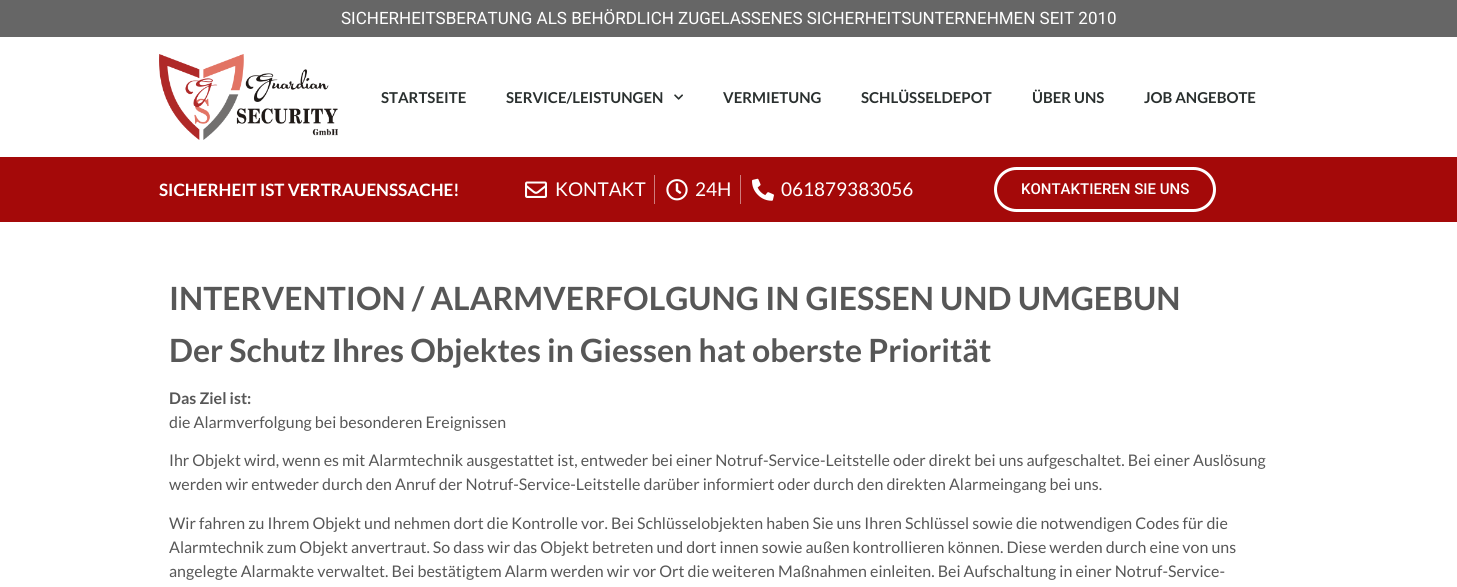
import math
import cairo

surface = cairo.ImageSurface(cairo.FORMAT_RGB24, 1457, 587)
ctx = cairo.Context(surface)
options = cairo.FontOptions()
options.set_hint_metrics(cairo.HINT_METRICS_OFF)
options.set_hint_style(cairo.HINT_STYLE_NONE)
ctx.set_font_options(options)
ctx.set_miter_limit(4)


def set_color(code):
    ctx.set_source_rgb(*(v / 255 for v in bytes.fromhex(code[-6:])))


def draw_text(x, y, s, family, size, color, bold=False, italic=False):
    ctx.select_font_face(family, cairo.FONT_SLANT_ITALIC if italic else cairo.FONT_SLANT_NORMAL, cairo.FONT_WEIGHT_BOLD if bold else cairo.FONT_WEIGHT_NORMAL)
    ctx.set_font_size(size)
    set_color(color)
    ctx.move_to(x, y)
    ctx.show_text(s)


def fill_rect(x, y, w, h, color):
    set_color(color)
    ctx.rectangle(x, y, w, h)
    ctx.fill()


def rounded_rect(x, y, w, h, r):
    ctx.new_sub_path()
    for i, (u, v) in enumerate([(x + w - r, y + h - r), (x + r, y + h - r), (x + r, y + r), (x + w - r, y + r)]):
        ctx.arc(u, v, r, i * math.pi / 2, (i + 1) * math.pi / 2)
    ctx.close_path()


def draw_image(path, x, y, w, h):
    ctx.save()
    ctx.set_source_surface(cairo.ImageSurface.create_from_png(path), x, y)
    ctx.rectangle(x, y, w, h)
    ctx.fill()
    ctx.restore()


set_color("#ffffff")
ctx.paint()
fill_rect(0, 0, 1457, 37, "#666666")
draw_text(341, 24, "SICHERHEITSBERATUNG ALS BEHÖRDLICH ZUGELASSENES SICHERHEITSUNTERNEHMEN SEIT 2010", "Roboto", 17, "#ffffff")
draw_image("assets/img1.png", 159, 54, 179, 86)
draw_text(381, 103, "STARTSEITE", "Lato", 15, "#2a302f", bold=True)
draw_text(506, 103, "SERVICE/LEISTUNGEN", "Lato", 15, "#2a302f", bold=True)
draw_image("assets/img2.png", 674, 94, 9, 6)
draw_text(723, 103, "VERMIETUNG", "Lato", 15, "#2a302f", bold=True)
draw_text(861, 103, "SCHLÜSSELDEPOT", "Lato", 15, "#2a302f", bold=True)
draw_text(1032, 103, "ÜBER UNS", "Lato", 15, "#2a302f", bold=True)
draw_text(1144, 103, "JOB ANGEBOTE", "Lato", 15, "#2a302f", bold=True)
fill_rect(0, 157, 1457, 65, "#a40909")
draw_text(159, 196, "SICHERHEIT IST VERTRAUENSSACHE!", "Lato", 17, "#ffffff", bold=True)
draw_image("assets/img3.png", 525, 181, 22, 17)
draw_text(555, 196, "KONTAKT", "Lato", 19, "#ffffff")
fill_rect(654, 175, 1, 29, "#cf7d7d")
draw_image("assets/img4.png", 666, 179, 22, 22)
draw_text(695, 196, "24H", "Lato", 19, "#ffffff")
fill_rect(740, 175, 1, 29, "#cf7d7d")
draw_image("assets/img5.png", 752, 178, 22, 23)
draw_text(781, 196, "061879383056", "Lato", 19, "#ffffff")
rounded_rect(995.5, 168.5, 219, 42, 21)
ctx.set_line_width(3)
ctx.stroke()
draw_text(1021, 194, "KONTAKTIEREN SIE UNS", "Roboto Medium", 15, "#ffffff")
draw_text(169, 310, "INTERVENTION / ALARMVERFOLGUNG IN GIESSEN UND UMGEBUN", "Lato", 32, "#575757", bold=True)
draw_text(169, 362, "Der Schutz Ihres Objektes in Giessen hat oberste Priorität", "Lato", 32, "#575757", bold=True)
draw_text(169, 404, "Das Ziel ist:", "Lato", 16, "#575757", bold=True)
draw_text(169, 428, "die Alarmverfolgung bei besonderen Ereignissen", "Lato", 16, "#575757")
draw_text(169, 466, "Ihr Objekt wird, wenn es mit Alarmtechnik ausgestattet ist, entweder bei einer Notruf-Service-Leitstelle oder direkt bei uns aufgeschaltet. Bei einer Auslösung", "Lato", 16, "#575757")
draw_text(169, 490, "werden wir entweder durch den Anruf der Notruf-Service-Leitstelle darüber informiert oder durch den direkten Alarmeingang bei uns.", "Lato", 16, "#575757")
draw_text(169, 529, "Wir fahren zu Ihrem Objekt und nehmen dort die Kontrolle vor. Bei Schlüsselobjekten haben Sie uns Ihren Schlüssel sowie die notwendigen Codes für die", "Lato", 16, "#575757")
draw_text(169, 553, "Alarmtechnik zum Objekt anvertraut. So dass wir das Objekt betreten und dort innen sowie außen kontrollieren können. Diese werden durch eine von uns", "Lato", 16, "#575757")
draw_text(169, 577, "angelegte Alarmakte verwaltet. Bei bestätigtem Alarm werden wir vor Ort die weiteren Maßnahmen einleiten. Bei Aufschaltung in einer Notruf-Service-", "Lato", 16, "#575757")
surface.write_to_png("output.png")
